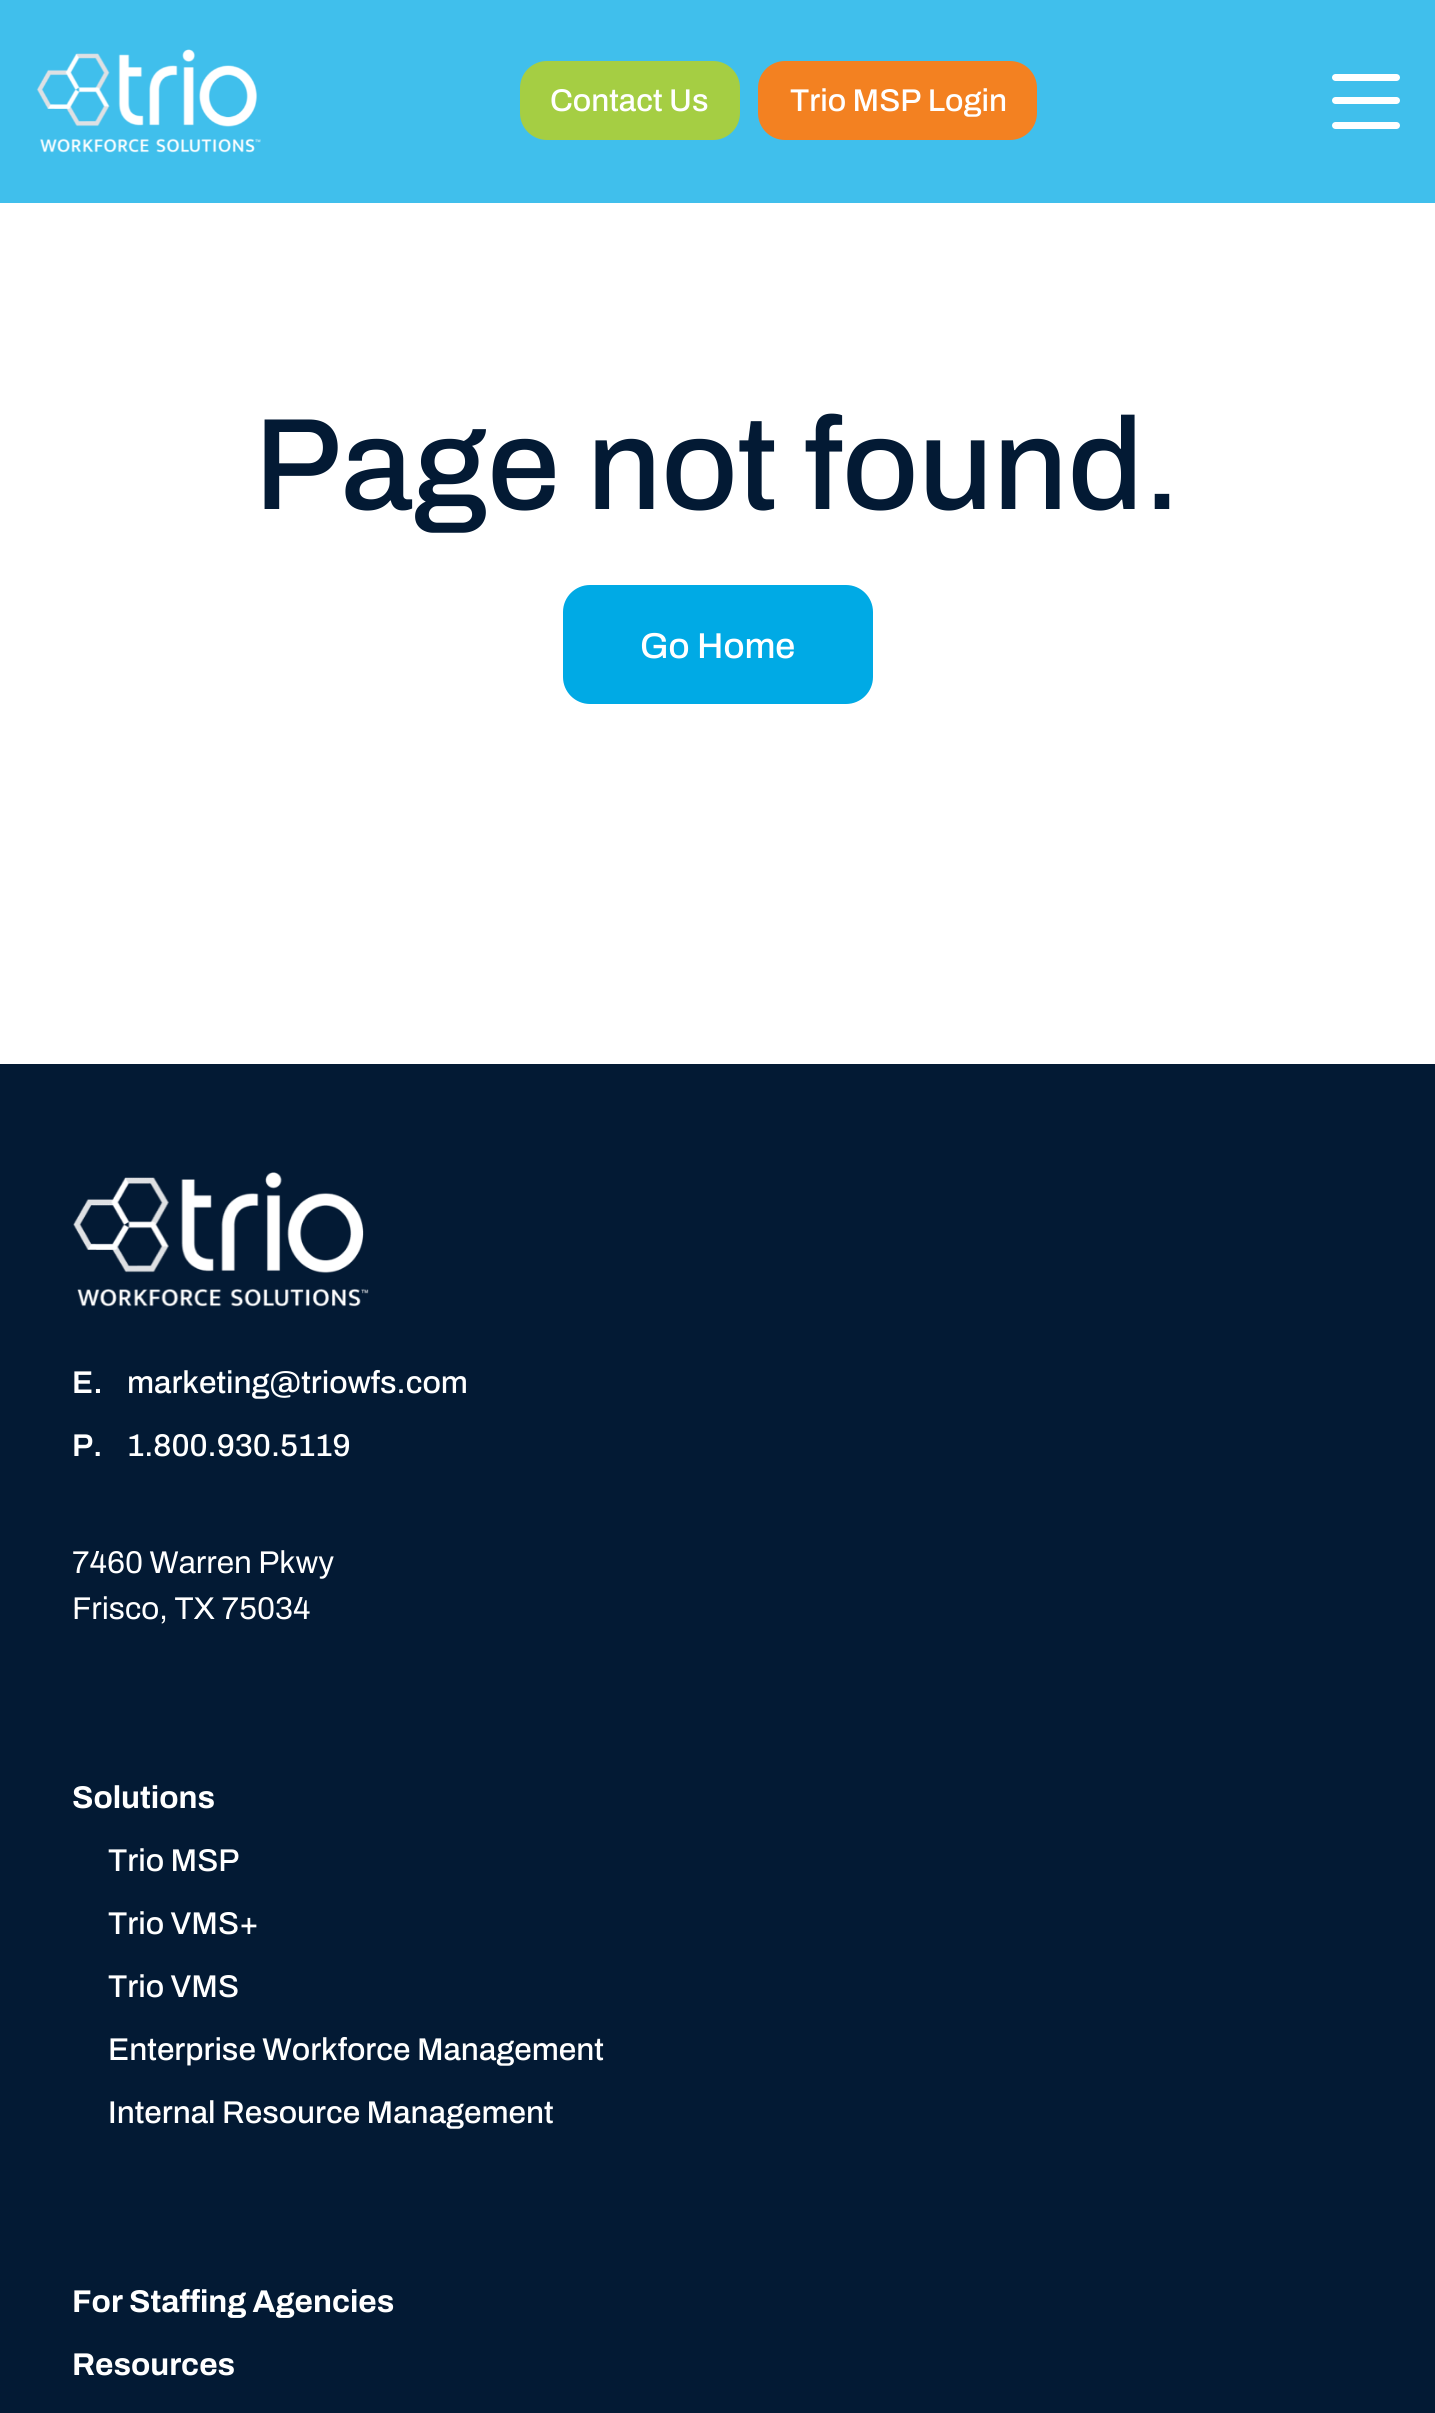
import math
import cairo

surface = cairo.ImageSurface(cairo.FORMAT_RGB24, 1435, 2413)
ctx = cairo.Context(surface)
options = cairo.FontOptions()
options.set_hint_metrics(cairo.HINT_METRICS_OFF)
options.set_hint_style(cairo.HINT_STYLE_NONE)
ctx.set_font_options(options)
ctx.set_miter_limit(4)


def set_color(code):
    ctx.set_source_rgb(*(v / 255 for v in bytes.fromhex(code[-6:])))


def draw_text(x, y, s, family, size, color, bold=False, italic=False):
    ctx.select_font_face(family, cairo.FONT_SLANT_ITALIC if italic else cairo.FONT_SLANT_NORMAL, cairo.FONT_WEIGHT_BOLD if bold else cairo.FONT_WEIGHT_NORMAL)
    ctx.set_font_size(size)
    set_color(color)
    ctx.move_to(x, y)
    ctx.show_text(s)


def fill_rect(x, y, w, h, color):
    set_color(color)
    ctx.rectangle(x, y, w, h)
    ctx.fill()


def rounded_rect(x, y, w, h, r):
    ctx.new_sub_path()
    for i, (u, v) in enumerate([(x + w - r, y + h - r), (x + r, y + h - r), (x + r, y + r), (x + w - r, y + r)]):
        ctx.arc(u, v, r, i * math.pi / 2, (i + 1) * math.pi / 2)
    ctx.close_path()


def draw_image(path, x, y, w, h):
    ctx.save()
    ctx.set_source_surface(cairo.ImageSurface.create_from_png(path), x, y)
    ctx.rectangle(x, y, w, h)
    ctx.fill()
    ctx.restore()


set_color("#ffffff")
ctx.paint()
fill_rect(0, 0, 1435, 203, "#40bfec")
draw_image("assets/img1.png", 36, 49, 225, 104)
set_color("#a5ce43")
rounded_rect(522.5, 63.5, 215, 74, 24.5)
ctx.fill_preserve()
ctx.set_line_width(5)
ctx.stroke()
draw_text(550, 111, "Contact Us", "Archivo Medium", 31.5, "#ffffff")
set_color("#f38121")
rounded_rect(760.5, 63.5, 274, 74, 24.5)
ctx.fill_preserve()
ctx.stroke()
draw_text(790, 111, "Trio MSP Login", "Archivo Medium", 31.5, "#ffffff")
rounded_rect(1332, 74, 68, 7, 3.5)
ctx.fill()
rounded_rect(1332, 97, 68, 7, 3.5)
ctx.fill()
rounded_rect(1332, 122, 68, 7, 3.5)
ctx.fill()
draw_text(254, 509, "Page not found.", "Archivo Medium", 130.5, "#031a34")
set_color("#00aae5")
rounded_rect(565.5, 587.5, 305, 114, 24.5)
ctx.fill_preserve()
ctx.stroke()
draw_text(640, 658, "Go Home", "Archivo Medium", 36, "#ffffff")
fill_rect(0, 1064, 1435, 1349, "#031a34")
draw_image("assets/img2.png", 73, 1172, 296, 135)
draw_text(72, 1393, "E.", "Archivo SemiBold", 31.5, "#ffffff")
draw_text(127, 1393, "marketing@triowfs.com", "Archivo Medium", 31.5, "#ffffff")
draw_text(72, 1456, "P.", "Archivo SemiBold", 31.5, "#ffffff")
draw_text(127, 1456, "1.800.930.5119", "Archivo Medium", 31.5, "#ffffff")
draw_text(72, 1573, "7460 Warren Pkwy", "Archivo", 31.5, "#ffffff")
draw_text(72, 1619, "Frisco, TX 75034", "Archivo", 31.5, "#ffffff")
draw_text(72, 1808, "Solutions", "Archivo", 31.5, "#ffffff", bold=True)
draw_text(108, 1871, "Trio MSP", "Archivo Medium", 31.5, "#ffffff")
draw_text(108, 1934, "Trio VMS+", "Archivo Medium", 31.5, "#ffffff")
draw_text(108, 1997, "Trio VMS", "Archivo Medium", 31.5, "#ffffff")
draw_text(108, 2060, "Enterprise Workforce Management", "Archivo Medium", 31.5, "#ffffff")
draw_text(108, 2123, "Internal Resource Management", "Archivo Medium", 31.5, "#ffffff")
draw_text(72, 2312, "For Staffing Agencies", "Archivo", 31.5, "#ffffff", bold=True)
draw_text(72, 2375, "Resources", "Archivo", 31.5, "#ffffff", bold=True)
surface.write_to_png("output.png")
